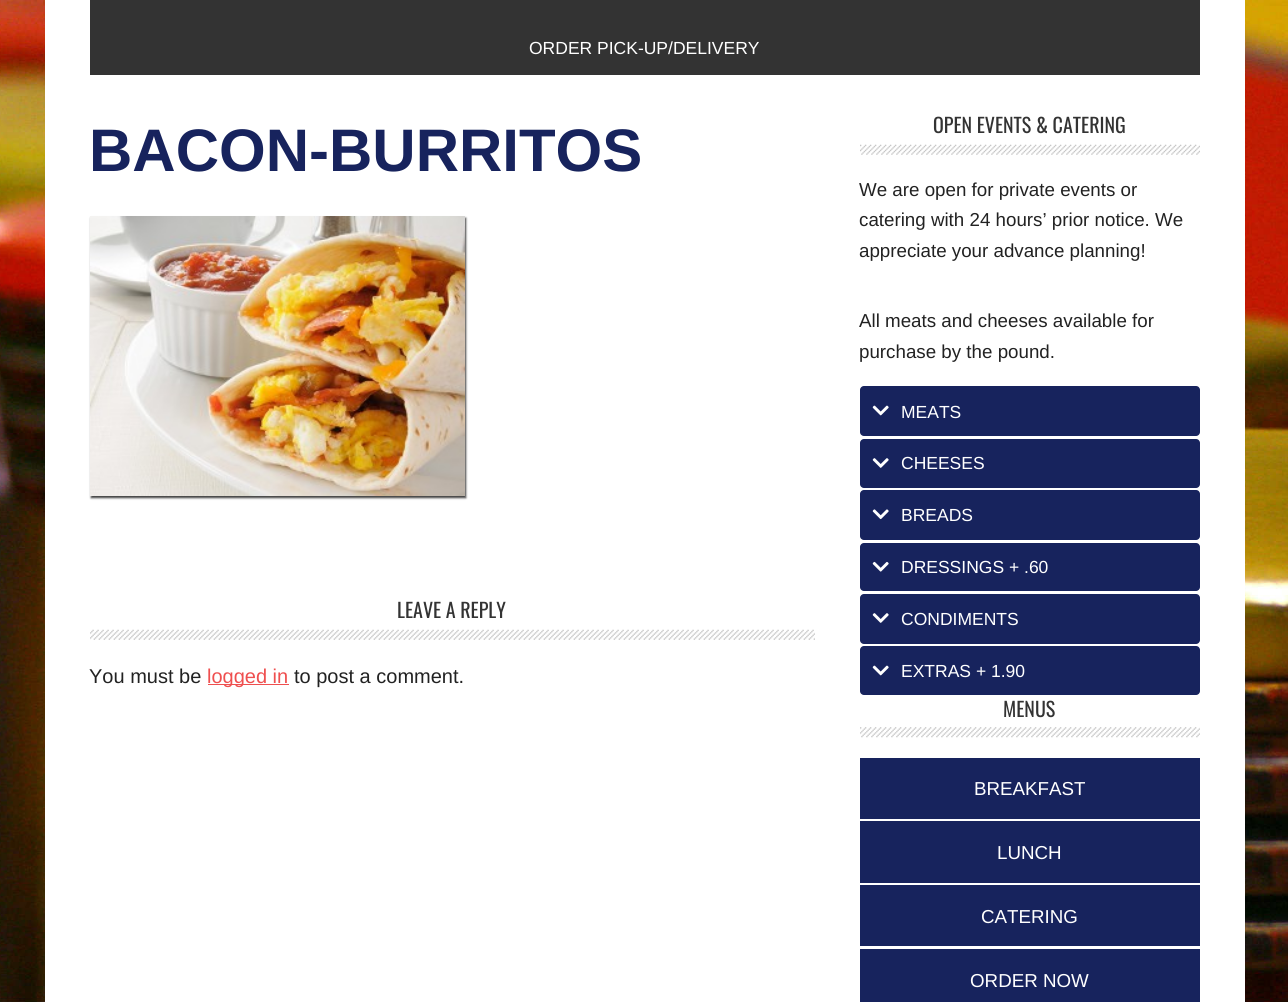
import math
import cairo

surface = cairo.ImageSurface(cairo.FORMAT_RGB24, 1288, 1002)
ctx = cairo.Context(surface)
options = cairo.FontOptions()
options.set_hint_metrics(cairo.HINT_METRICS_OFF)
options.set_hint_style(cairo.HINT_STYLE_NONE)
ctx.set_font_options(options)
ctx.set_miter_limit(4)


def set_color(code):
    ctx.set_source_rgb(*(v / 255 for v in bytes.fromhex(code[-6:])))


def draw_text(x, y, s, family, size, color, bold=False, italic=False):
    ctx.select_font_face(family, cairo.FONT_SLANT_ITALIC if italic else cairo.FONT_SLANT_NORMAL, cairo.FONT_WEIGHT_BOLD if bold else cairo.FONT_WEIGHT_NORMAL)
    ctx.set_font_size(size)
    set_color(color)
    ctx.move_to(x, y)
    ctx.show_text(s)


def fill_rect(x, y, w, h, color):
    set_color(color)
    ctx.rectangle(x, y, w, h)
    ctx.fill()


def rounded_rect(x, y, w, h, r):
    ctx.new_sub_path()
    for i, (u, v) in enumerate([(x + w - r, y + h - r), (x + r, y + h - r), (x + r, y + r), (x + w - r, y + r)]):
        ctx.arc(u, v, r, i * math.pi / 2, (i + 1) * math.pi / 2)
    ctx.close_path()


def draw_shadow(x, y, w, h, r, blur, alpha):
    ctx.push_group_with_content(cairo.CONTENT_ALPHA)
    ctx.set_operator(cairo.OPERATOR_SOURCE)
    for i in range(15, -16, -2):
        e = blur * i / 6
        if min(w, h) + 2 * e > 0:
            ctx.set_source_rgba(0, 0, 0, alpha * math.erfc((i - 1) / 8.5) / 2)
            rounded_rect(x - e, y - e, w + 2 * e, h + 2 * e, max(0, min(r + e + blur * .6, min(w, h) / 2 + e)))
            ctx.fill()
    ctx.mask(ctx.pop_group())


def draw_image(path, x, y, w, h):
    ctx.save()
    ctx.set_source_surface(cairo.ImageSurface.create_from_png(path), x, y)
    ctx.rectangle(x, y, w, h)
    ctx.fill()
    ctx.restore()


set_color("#ffffff")
ctx.paint()
draw_image("assets/img1.png", 0, 0, 1288, 1002)
fill_rect(45, 0, 1200, 1002, "#ffffff")
fill_rect(90, 0, 1110, 75, "#333333")
draw_text(529, 54, "ORDER PICK-UP/DELIVERY", "Liberation Sans", 17.5, "#ffffff")
draw_text(89, 171, "BACON-BURRITOS", "Liberation Sans", 60, "#17235d", bold=True)
set_color("#000000")
draw_shadow(91, 218, 375, 280, 0, 1, 0.75)
draw_image("assets/img2.png", 90, 216, 375, 280)
draw_image("assets/img3.png", 90, 629, 725, 11)
draw_text(397, 618, "LEAVE A REPLY", "Oswald", 20, "#333333")
draw_text(89, 683, "You must be", "Liberation Sans", 20, "#222222")
fill_rect(208, 684, 81, 1, "#ef4f4f")
draw_text(207, 683, "logged in", "Liberation Sans", 20, "#ef4f4f")
draw_text(294, 683, "to post a comment.", "Liberation Sans", 20, "#222222")
draw_image("assets/img4.png", 860, 144, 340, 11)
draw_text(933, 133, "OPEN EVENTS & CATERING", "Oswald", 20, "#333333")
draw_text(859, 196, "We are open for private events or", "Liberation Sans", 18.75, "#222222")
draw_text(859, 226, "catering with 24 hours’ prior notice. We", "Liberation Sans", 18.75, "#222222")
draw_text(859, 257, "appreciate your advance planning!", "Liberation Sans", 18.75, "#222222")
draw_text(859, 327, "All meats and cheeses available for", "Liberation Sans", 18.75, "#222222")
draw_text(859, 358, "purchase by the pound.", "Liberation Sans", 18.75, "#222222")
set_color("#17235d")
rounded_rect(860, 386, 340, 50, 4)
ctx.fill()
draw_image("assets/img5.png", 872, 405, 17, 11)
draw_text(901, 418, "MEATS", "Liberation Sans", 17.5, "#ffffff")
set_color("#17235d")
rounded_rect(860, 439, 340, 49, 4)
ctx.fill()
draw_image("assets/img6.png", 872, 458, 17, 10)
draw_text(901, 469, "CHEESES", "Liberation Sans", 17.5, "#ffffff")
set_color("#17235d")
rounded_rect(860, 490, 340, 50, 4)
ctx.fill()
draw_image("assets/img7.png", 872, 509, 17, 11)
draw_text(901, 521, "BREADS", "Liberation Sans", 17.5, "#ffffff")
set_color("#17235d")
rounded_rect(860, 543, 340, 48, 4)
ctx.fill()
draw_image("assets/img8.png", 872, 561, 17, 11)
draw_text(901, 573, "DRESSINGS + .60", "Liberation Sans", 17.5, "#ffffff")
set_color("#17235d")
rounded_rect(860, 594, 340, 50, 4)
ctx.fill()
draw_image("assets/img6.png", 872, 613, 17, 10)
draw_text(901, 625, "CONDIMENTS", "Liberation Sans", 17.5, "#ffffff")
set_color("#17235d")
rounded_rect(860, 646, 340, 49, 4)
ctx.fill()
draw_image("assets/img5.png", 872, 665, 17, 11)
draw_text(901, 677, "EXTRAS + 1.90", "Liberation Sans", 17.5, "#ffffff")
draw_image("assets/img9.png", 860, 727, 340, 11)
draw_text(1003, 717, "MENUS", "Oswald", 20, "#333333")
fill_rect(860, 758, 340, 61, "#17235d")
draw_text(974, 795, "BREAKFAST", "Liberation Sans", 18.75, "#ffffff")
fill_rect(860, 821, 340, 62, "#17235d")
draw_text(997, 859, "LUNCH", "Liberation Sans", 18.75, "#ffffff")
fill_rect(860, 885, 340, 61, "#17235d")
draw_text(981, 923, "CATERING", "Liberation Sans", 18.75, "#ffffff")
fill_rect(860, 949, 340, 53, "#17235d")
draw_text(970, 987, "ORDER NOW", "Liberation Sans", 18.75, "#ffffff")
surface.write_to_png("output.png")
